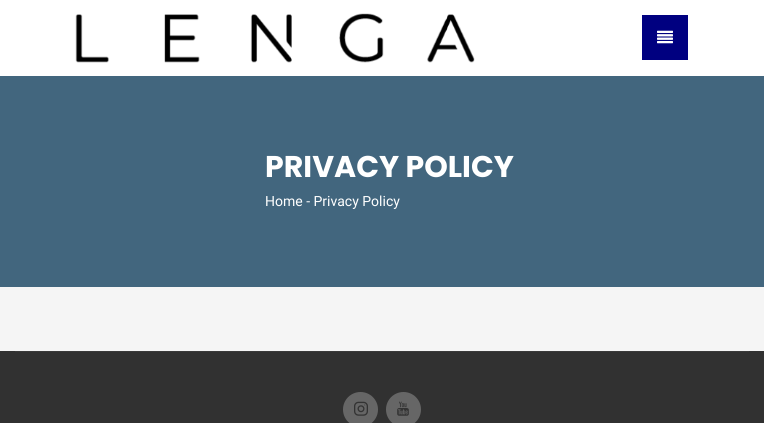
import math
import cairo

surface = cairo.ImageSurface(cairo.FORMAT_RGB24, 764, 423)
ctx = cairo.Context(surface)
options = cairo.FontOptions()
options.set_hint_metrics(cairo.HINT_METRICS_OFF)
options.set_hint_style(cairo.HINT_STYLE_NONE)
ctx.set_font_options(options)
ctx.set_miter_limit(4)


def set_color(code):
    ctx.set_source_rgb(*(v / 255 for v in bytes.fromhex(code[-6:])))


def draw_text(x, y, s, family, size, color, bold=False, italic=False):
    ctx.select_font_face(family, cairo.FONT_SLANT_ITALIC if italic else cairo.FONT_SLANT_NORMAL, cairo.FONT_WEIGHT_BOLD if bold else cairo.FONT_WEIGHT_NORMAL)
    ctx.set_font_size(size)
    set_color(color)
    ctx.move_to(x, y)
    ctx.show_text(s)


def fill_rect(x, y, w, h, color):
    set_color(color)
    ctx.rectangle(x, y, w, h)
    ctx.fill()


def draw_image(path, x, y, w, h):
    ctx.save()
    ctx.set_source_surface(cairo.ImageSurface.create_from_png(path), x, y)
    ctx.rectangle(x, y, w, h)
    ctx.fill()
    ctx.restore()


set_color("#f5f5f5")
ctx.paint()
fill_rect(0, 0, 764, 76, "#ffffff")
draw_image("assets/img1.png", 75, 13, 400, 50)
fill_rect(642, 15, 46, 45, "#000080")
draw_image("assets/img2.png", 657, 30, 16, 14)
fill_rect(0, 76, 764, 211, "#42667e")
draw_text(265, 177, "PRIVACY POLICY", "Poppins", 30, "#ffffff", bold=True)
draw_text(265, 206, "Home - Privacy Policy", "Roboto", 14, "#ffffff")
fill_rect(0, 351, 764, 72, "#313131")
fill_rect(15, 351, 734, 1, "#3a3a3a")
set_color("#666666")
ctx.new_path()
ctx.arc(360.5, 409.5, 17.5, 0, 2 * math.pi)
ctx.fill()
draw_image("assets/img3.png", 354, 401, 14, 15)
ctx.arc(403.5, 409.5, 17.5, 0, 2 * math.pi)
ctx.fill()
draw_image("assets/img4.png", 397, 401, 12, 15)
surface.write_to_png("output.png")
